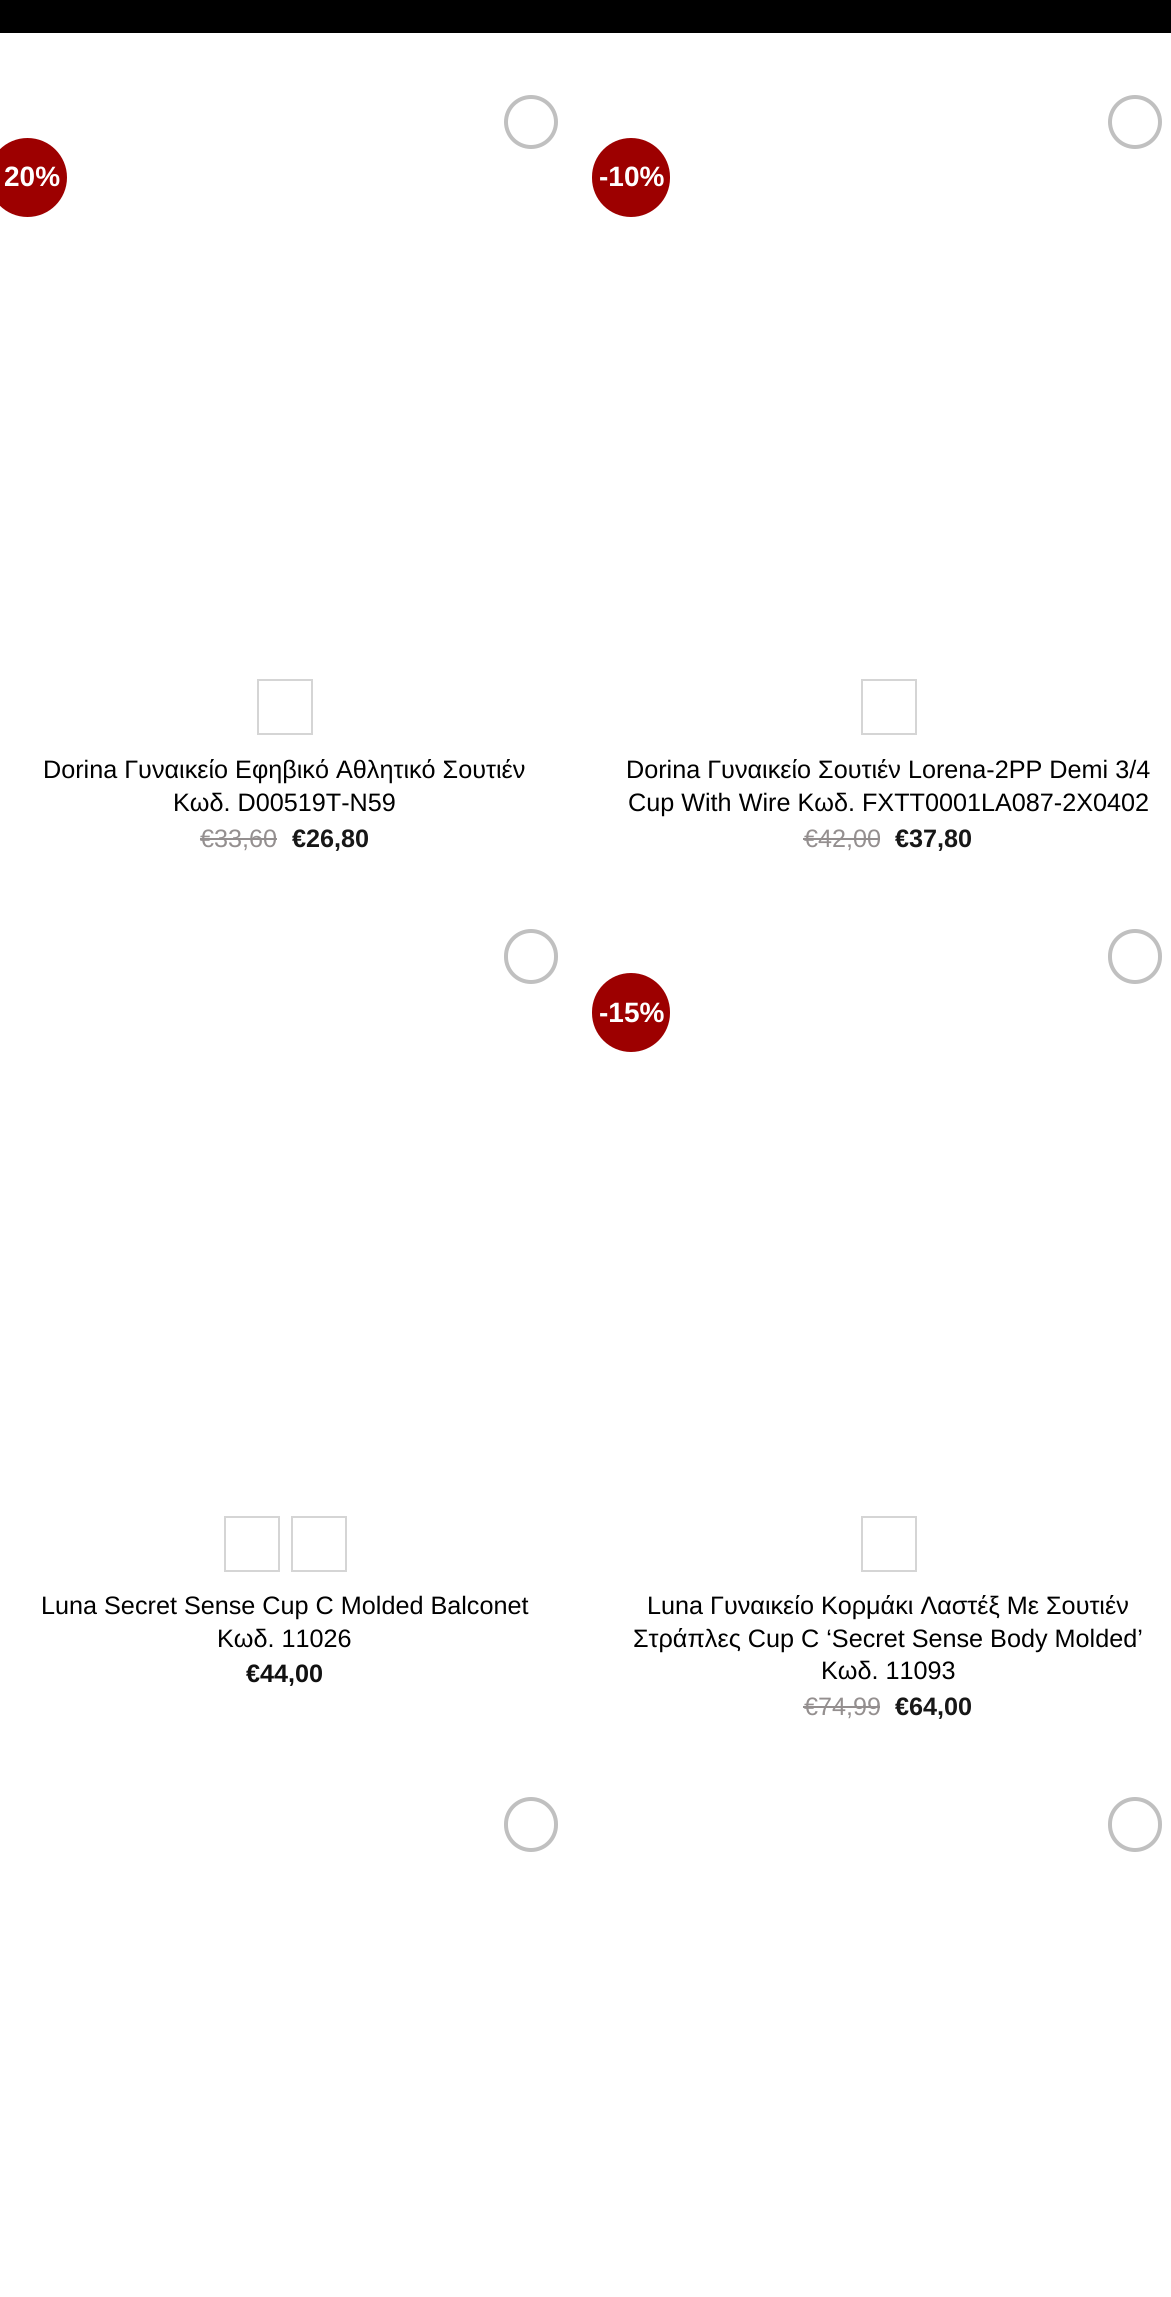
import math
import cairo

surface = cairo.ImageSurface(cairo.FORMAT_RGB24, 1171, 2297)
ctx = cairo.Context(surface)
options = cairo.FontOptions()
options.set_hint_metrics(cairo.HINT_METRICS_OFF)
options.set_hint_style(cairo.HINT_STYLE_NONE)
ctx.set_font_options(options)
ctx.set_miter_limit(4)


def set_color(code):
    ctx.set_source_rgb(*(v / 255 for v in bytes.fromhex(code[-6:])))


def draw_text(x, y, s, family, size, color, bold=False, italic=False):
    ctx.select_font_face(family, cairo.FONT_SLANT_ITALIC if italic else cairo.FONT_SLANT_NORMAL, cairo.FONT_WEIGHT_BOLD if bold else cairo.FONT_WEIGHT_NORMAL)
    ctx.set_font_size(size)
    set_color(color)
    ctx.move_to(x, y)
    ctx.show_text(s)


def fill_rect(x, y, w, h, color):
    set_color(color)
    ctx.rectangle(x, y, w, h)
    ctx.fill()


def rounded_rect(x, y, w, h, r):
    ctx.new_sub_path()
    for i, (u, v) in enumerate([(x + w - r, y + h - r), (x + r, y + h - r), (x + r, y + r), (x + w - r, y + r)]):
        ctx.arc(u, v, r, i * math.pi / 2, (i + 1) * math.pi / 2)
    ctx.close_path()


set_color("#ffffff")
ctx.paint()
fill_rect(0, 0, 1171, 33, "#000000")
set_color("#9d0000")
ctx.arc(27.5, 177.5, 39.5, 0, 2 * math.pi)
ctx.fill()
draw_text(4, 186, "20%", "Liberation Sans", 28, "#ffffff", bold=True)
ctx.new_path()
ctx.arc(531, 122, 25, 0, 2 * math.pi)
set_color("#c0c0c0")
ctx.set_line_width(4)
ctx.stroke()
ctx.rectangle(258, 680, 54, 54)
set_color("#d5d5d5")
ctx.set_line_width(2)
ctx.stroke()
draw_text(43, 778, "Dorina Γυναικείο Εφηβικό Αθλητικό Σουτιέν", "Liberation Sans", 25.2, "#000000")
draw_text(173, 811, "Κωδ. D00519T-N59", "Liberation Sans", 25.2, "#000000")
draw_text(200, 847, "€33,60", "Liberation Sans", 25.2, "#948f8f")
fill_rect(200, 838, 77, 2, "#948f8f")
draw_text(292, 847, "€26,80", "Liberation Sans", 25.2, "#171717", bold=True)
set_color("#9d0000")
rounded_rect(592, 138, 78, 79, 39)
ctx.fill()
draw_text(599, 186, "-10%", "Liberation Sans", 28, "#ffffff", bold=True)
ctx.new_path()
ctx.arc(1135, 122, 25, 0, 2 * math.pi)
set_color("#c0c0c0")
ctx.set_line_width(4)
ctx.stroke()
ctx.rectangle(862, 680, 54, 54)
set_color("#d5d5d5")
ctx.set_line_width(2)
ctx.stroke()
draw_text(626, 778, "Dorina Γυναικείο Σουτιέν Lorena-2PP Demi 3/4", "Liberation Sans", 25.2, "#000000")
draw_text(628, 811, "Cup With Wire Κωδ. FXTT0001LA087-2X0402", "Liberation Sans", 25.2, "#000000")
draw_text(804, 847, "€42,00", "Liberation Sans", 25.2, "#948f8f")
fill_rect(803, 838, 77, 2, "#948f8f")
draw_text(895, 847, "€37,80", "Liberation Sans", 25.2, "#171717", bold=True)
rounded_rect(506, 931, 50, 51, 25)
set_color("#c0c0c0")
ctx.set_line_width(4)
ctx.stroke()
ctx.rectangle(225, 1517, 54, 54)
set_color("#d5d5d5")
ctx.set_line_width(2)
ctx.stroke()
ctx.rectangle(292, 1517, 54, 54)
ctx.stroke()
draw_text(41, 1614, "Luna Secret Sense Cup C Molded Balconet", "Liberation Sans", 25.2, "#000000")
draw_text(217, 1647, "Κωδ. 11026", "Liberation Sans", 25.2, "#000000")
draw_text(246, 1682, "€44,00", "Liberation Sans", 25.2, "#111111", bold=True)
set_color("#9d0000")
rounded_rect(592, 973, 78, 79, 39)
ctx.fill()
draw_text(599, 1022, "-15%", "Liberation Sans", 28, "#ffffff", bold=True)
rounded_rect(1110, 931, 50, 51, 25)
set_color("#c0c0c0")
ctx.set_line_width(4)
ctx.stroke()
ctx.rectangle(862, 1517, 54, 54)
set_color("#d5d5d5")
ctx.set_line_width(2)
ctx.stroke()
draw_text(647, 1614, "Luna Γυναικείο Κορμάκι Λαστέξ Με Σουτιέν", "Liberation Sans", 25.2, "#000000")
draw_text(633, 1647, "Στράπλες Cup C ‘Secret Sense Body Molded’", "Liberation Sans", 25.2, "#000000")
draw_text(821, 1679, "Κωδ. 11093", "Liberation Sans", 25.2, "#000000")
draw_text(804, 1715, "€74,99", "Liberation Sans", 25.2, "#948f8f")
fill_rect(803, 1706, 77, 2, "#948f8f")
draw_text(895, 1715, "€64,00", "Liberation Sans", 25.2, "#171717", bold=True)
rounded_rect(506, 1799, 50, 51, 25)
set_color("#c0c0c0")
ctx.set_line_width(4)
ctx.stroke()
rounded_rect(1110, 1799, 50, 51, 25)
ctx.stroke()
surface.write_to_png("output.png")
